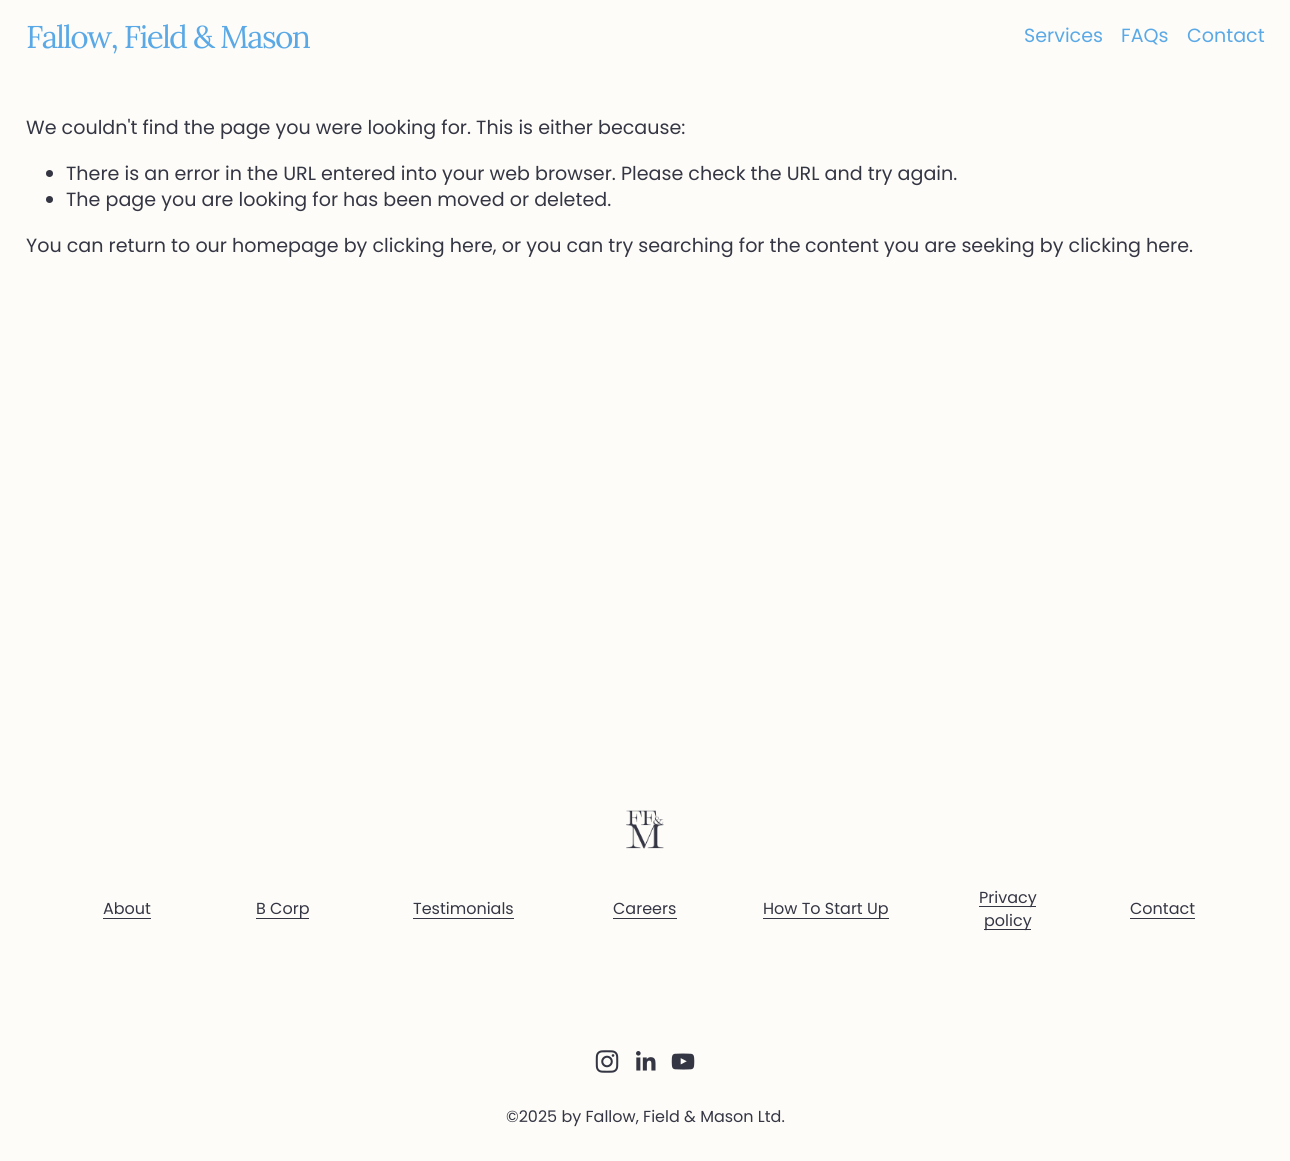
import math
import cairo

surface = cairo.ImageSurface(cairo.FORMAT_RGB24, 1290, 1161)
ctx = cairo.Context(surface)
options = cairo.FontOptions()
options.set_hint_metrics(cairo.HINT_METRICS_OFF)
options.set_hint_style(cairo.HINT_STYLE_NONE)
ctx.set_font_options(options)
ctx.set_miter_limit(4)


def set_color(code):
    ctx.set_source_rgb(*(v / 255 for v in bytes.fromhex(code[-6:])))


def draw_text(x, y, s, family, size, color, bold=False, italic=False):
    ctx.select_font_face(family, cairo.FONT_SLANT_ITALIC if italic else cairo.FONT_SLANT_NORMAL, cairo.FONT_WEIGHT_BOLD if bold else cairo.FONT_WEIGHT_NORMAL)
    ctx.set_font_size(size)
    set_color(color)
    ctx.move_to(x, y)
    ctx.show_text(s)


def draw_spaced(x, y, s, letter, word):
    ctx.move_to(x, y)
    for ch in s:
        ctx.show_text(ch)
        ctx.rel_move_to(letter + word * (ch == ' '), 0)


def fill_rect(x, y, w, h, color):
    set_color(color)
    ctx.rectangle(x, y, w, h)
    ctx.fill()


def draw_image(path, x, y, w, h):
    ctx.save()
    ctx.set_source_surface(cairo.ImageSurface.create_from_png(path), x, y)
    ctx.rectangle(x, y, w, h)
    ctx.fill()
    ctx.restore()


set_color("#fdfcf8")
ctx.paint()
ctx.select_font_face("Lora")
ctx.set_font_size(31.5)
set_color("#5aa9e6")
draw_spaced(26, 48, "Fallow, Field & Mason", -1.6, 0)
draw_text(1024, 42, "Services", "Poppins", 19.1, "#5aa9e6")
draw_text(1121, 42, "FAQs", "Poppins", 19.1, "#5aa9e6")
draw_text(1187, 42, "Contact", "Poppins", 19.1, "#5aa9e6")
draw_text(26, 134, "We couldn't find the page you were looking for. This is either because:", "Poppins", 19.1, "#353644")
ctx.new_path()
ctx.arc(49.5, 173.5, 3.5, 0, 2 * math.pi)
ctx.fill()
draw_text(66, 180, "There is an error in the URL entered into your web browser. Please check the URL and try again.", "Poppins", 19.1, "#353644")
ctx.new_path()
ctx.arc(49.5, 199.5, 3.5, 0, 2 * math.pi)
ctx.fill()
draw_text(66, 206, "The page you are looking for has been moved or deleted.", "Poppins", 19.1, "#353644")
draw_text(26, 252, "You can return to our homepage by clicking here, or you can try searching for the", "Poppins", 19.1, "#353644")
draw_text(805, 252, "content you are seeking by clicking here.", "Poppins", 19.1, "#353644")
draw_image("assets/img1.png", 626, 810, 38, 39)
draw_text(103, 914, "About", "Poppins", 16, "#353644")
fill_rect(103, 918, 48, 1, "#353644")
fill_rect(256, 918, 53, 1, "#353644")
draw_text(256, 914, "B Corp", "Poppins", 16, "#353644")
draw_text(413, 914, "Testimonials", "Poppins", 16, "#353644")
fill_rect(413, 918, 101, 1, "#353644")
draw_text(613, 914, "Careers", "Poppins", 16, "#353644")
fill_rect(613, 918, 64, 1, "#353644")
fill_rect(763, 918, 126, 1, "#353644")
draw_text(763, 914, "How To Start Up", "Poppins", 16, "#353644")
fill_rect(979, 906, 57, 1, "#353644")
draw_text(979, 903, "Privacy", "Poppins", 16, "#353644")
fill_rect(984, 929, 47, 1, "#353644")
draw_text(984, 926, "policy", "Poppins", 16, "#353644")
draw_text(1130, 914, "Contact", "Poppins", 16, "#353644")
fill_rect(1130, 918, 65, 1, "#353644")
draw_image("assets/img2.png", 595, 1050, 24, 23)
draw_image("assets/img3.png", 636, 1051, 20, 20)
draw_image("assets/img4.png", 671, 1053, 24, 17)
draw_text(506, 1122, "©2025 by Fallow, Field & Mason Ltd.", "Poppins", 16, "#353644")
surface.write_to_png("output.png")
